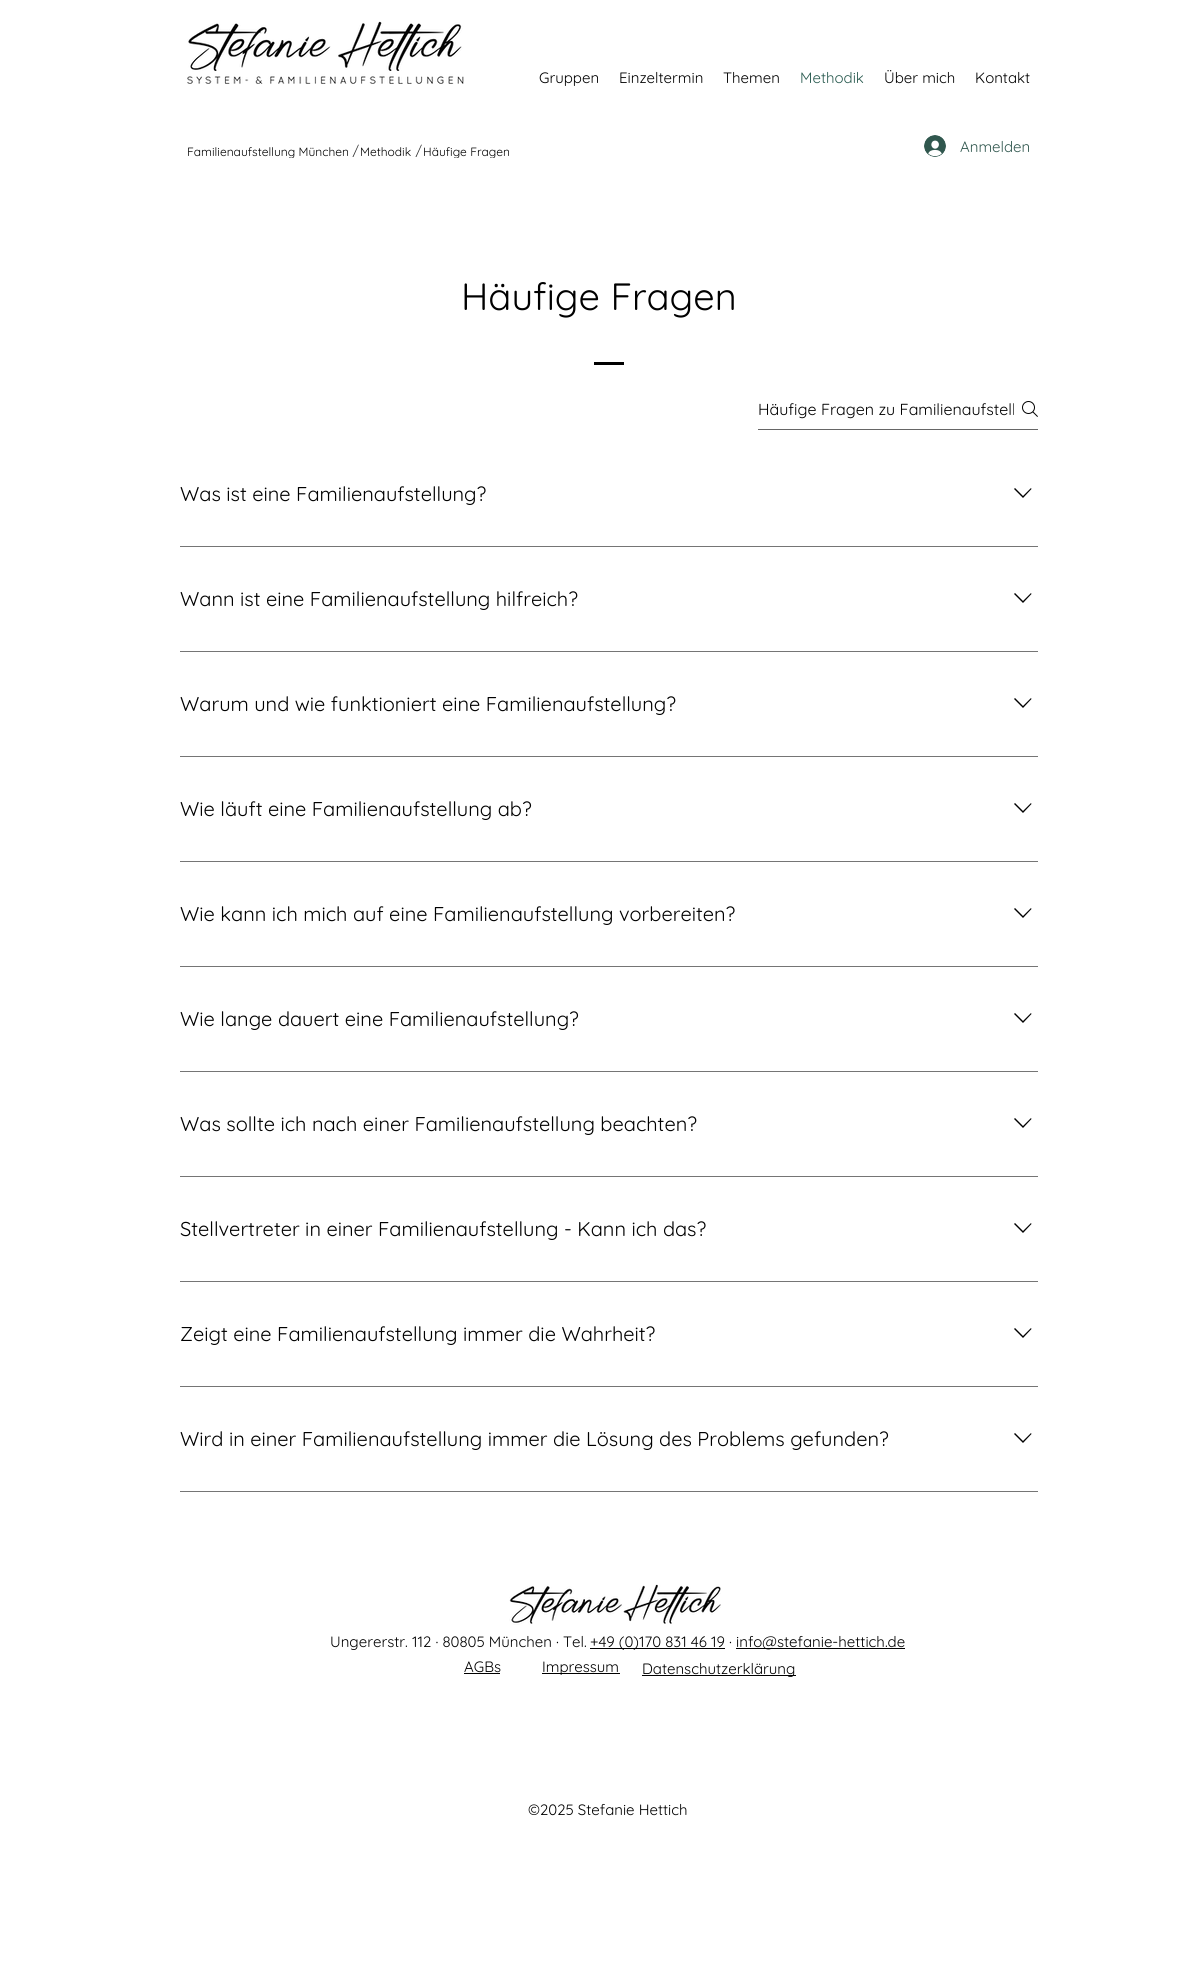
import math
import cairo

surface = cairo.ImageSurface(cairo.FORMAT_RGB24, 1198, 1987)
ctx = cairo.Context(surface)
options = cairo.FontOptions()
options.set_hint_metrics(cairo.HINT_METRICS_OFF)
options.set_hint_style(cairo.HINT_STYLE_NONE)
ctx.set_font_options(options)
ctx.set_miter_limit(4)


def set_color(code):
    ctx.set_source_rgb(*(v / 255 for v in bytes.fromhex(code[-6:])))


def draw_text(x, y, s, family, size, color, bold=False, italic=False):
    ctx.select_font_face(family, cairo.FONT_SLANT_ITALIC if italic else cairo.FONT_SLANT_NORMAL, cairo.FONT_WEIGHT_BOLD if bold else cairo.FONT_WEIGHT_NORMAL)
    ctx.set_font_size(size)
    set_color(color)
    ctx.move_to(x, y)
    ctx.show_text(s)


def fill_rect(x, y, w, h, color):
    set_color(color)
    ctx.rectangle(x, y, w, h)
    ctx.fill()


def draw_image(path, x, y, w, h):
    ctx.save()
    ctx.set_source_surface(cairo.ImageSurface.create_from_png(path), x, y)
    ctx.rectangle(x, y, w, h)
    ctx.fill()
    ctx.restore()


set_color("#ffffff")
ctx.paint()
draw_image("assets/img1.png", 187, 21, 277, 63)
draw_text(539, 83, "Gruppen", "Quicksand", 15, "#000000")
draw_text(619, 83, "Einzeltermin", "Quicksand", 15, "#000000")
draw_text(723, 83, "Themen", "Quicksand", 15, "#000000")
draw_text(800, 83, "Methodik", "Quicksand", 15, "#295a4f")
draw_text(884, 83, "Über mich", "Quicksand", 15, "#000000")
draw_text(975, 83, "Kontakt", "Quicksand", 15, "#000000")
ctx.save()
ctx.rectangle(187, 144, 162, 14)
ctx.clip()
draw_text(187, 156, "Familienaufstellung München", "Quicksand", 12, "#000000")
ctx.restore()
draw_text(352, 157, "/", "Libre Baskerville", 16, "#323232")
draw_text(360, 156, "Methodik", "Quicksand", 12, "#000000")
draw_text(415, 157, "/", "Libre Baskerville", 16, "#323232")
ctx.save()
ctx.rectangle(423, 144, 87, 14)
ctx.clip()
draw_text(423, 156, "Häufige Fragen", "Quicksand", 12, "#000000")
ctx.restore()
draw_image("assets/img2.png", 924, 135, 22, 22)
draw_text(960, 152, "Anmelden", "Quicksand", 15, "#30574e")
draw_text(461, 310, "Häufige Fragen", "Quicksand", 38, "#000000")
fill_rect(594, 362, 30, 3, "#000000")
fill_rect(758, 429, 280, 1, "#666666")
ctx.save()
ctx.rectangle(758, 399, 256, 20)
ctx.clip()
draw_text(758, 415, "Häufige Fragen zu Familienaufstell", "Quicksand", 16, "#000000")
ctx.restore()
draw_image("assets/img3.png", 1022, 401, 16, 16)
draw_text(180, 501, "Was ist eine Familienaufstellung?", "Quicksand", 20, "#000000")
ctx.set_fill_rule(cairo.FILL_RULE_EVEN_ODD)
ctx.new_path()
ctx.move_to(1031, 488)
ctx.line_to(1031.5, 489)
ctx.line_to(1023, 498)
ctx.line_to(1014, 489)
ctx.line_to(1015, 488)
ctx.line_to(1023, 496)
ctx.close_path()
ctx.fill()
fill_rect(180, 546, 858, 1, "#757575")
draw_text(180, 606, "Wann ist eine Familienaufstellung hilfreich?", "Quicksand", 20, "#000000")
ctx.new_path()
ctx.move_to(1031, 593)
ctx.line_to(1031.5, 594)
ctx.line_to(1023, 603)
ctx.line_to(1014, 594)
ctx.line_to(1015, 593)
ctx.line_to(1023, 601)
ctx.close_path()
ctx.fill()
fill_rect(180, 651, 858, 1, "#757575")
draw_text(180, 711, "Warum und wie funktioniert eine Familienaufstellung?", "Quicksand", 20, "#000000")
ctx.new_path()
ctx.move_to(1031, 698)
ctx.line_to(1031.5, 699)
ctx.line_to(1023, 708)
ctx.line_to(1014, 699)
ctx.line_to(1015, 698)
ctx.line_to(1023, 706)
ctx.close_path()
ctx.fill()
fill_rect(180, 756, 858, 1, "#757575")
draw_text(180, 816, "Wie läuft eine Familienaufstellung ab?", "Quicksand", 20, "#000000")
ctx.new_path()
ctx.move_to(1031, 803)
ctx.line_to(1031.5, 804)
ctx.line_to(1023, 813)
ctx.line_to(1014, 804)
ctx.line_to(1015, 803)
ctx.line_to(1023, 811)
ctx.close_path()
ctx.fill()
fill_rect(180, 861, 858, 1, "#757575")
draw_text(180, 921, "Wie kann ich mich auf eine Familienaufstellung vorbereiten?", "Quicksand", 20, "#000000")
ctx.new_path()
ctx.move_to(1031, 908)
ctx.line_to(1031.5, 909)
ctx.line_to(1023, 918)
ctx.line_to(1014, 909)
ctx.line_to(1015, 908)
ctx.line_to(1023, 916)
ctx.close_path()
ctx.fill()
fill_rect(180, 966, 858, 1, "#757575")
draw_text(180, 1026, "Wie lange dauert eine Familienaufstellung?", "Quicksand", 20, "#000000")
ctx.new_path()
ctx.move_to(1031, 1013)
ctx.line_to(1031.5, 1014)
ctx.line_to(1023, 1023)
ctx.line_to(1014, 1014)
ctx.line_to(1015, 1013)
ctx.line_to(1023, 1021)
ctx.close_path()
ctx.fill()
fill_rect(180, 1071, 858, 1, "#757575")
draw_text(180, 1131, "Was sollte ich nach einer Familienaufstellung beachten?", "Quicksand", 20, "#000000")
ctx.new_path()
ctx.move_to(1031, 1118)
ctx.line_to(1031.5, 1119)
ctx.line_to(1023, 1128)
ctx.line_to(1014, 1119)
ctx.line_to(1015, 1118)
ctx.line_to(1023, 1126)
ctx.close_path()
ctx.fill()
fill_rect(180, 1176, 858, 1, "#757575")
draw_text(180, 1236, "Stellvertreter in einer Familienaufstellung - Kann ich das?", "Quicksand", 20, "#000000")
ctx.new_path()
ctx.move_to(1031, 1223)
ctx.line_to(1031.5, 1224)
ctx.line_to(1023, 1233)
ctx.line_to(1014, 1224)
ctx.line_to(1015, 1223)
ctx.line_to(1023, 1231)
ctx.close_path()
ctx.fill()
fill_rect(180, 1281, 858, 1, "#757575")
draw_text(180, 1341, "Zeigt eine Familienaufstellung immer die Wahrheit?", "Quicksand", 20, "#000000")
ctx.new_path()
ctx.move_to(1031, 1328)
ctx.line_to(1031.5, 1329)
ctx.line_to(1023, 1338)
ctx.line_to(1014, 1329)
ctx.line_to(1015, 1328)
ctx.line_to(1023, 1336)
ctx.close_path()
ctx.fill()
fill_rect(180, 1386, 858, 1, "#757575")
draw_text(180, 1446, "Wird in einer Familienaufstellung immer die Lösung des Problems gefunden?", "Quicksand", 20, "#000000")
ctx.new_path()
ctx.move_to(1031, 1433)
ctx.line_to(1031.5, 1434)
ctx.line_to(1023, 1443)
ctx.line_to(1014, 1434)
ctx.line_to(1015, 1433)
ctx.line_to(1023, 1441)
ctx.close_path()
ctx.fill()
fill_rect(180, 1491, 858, 1, "#757575")
draw_image("assets/img4.png", 509, 1584, 212, 41)
draw_text(330, 1647, "Ungererstr. 112 · 80805 München · Tel.", "Quicksand", 15, "#000000")
fill_rect(590, 1648, 135, 1, "#000000")
draw_text(590, 1647, "+49 (0)170 831 46 19 ·", "Quicksand", 15, "#000000")
fill_rect(736, 1648, 169, 1, "#000000")
draw_text(736, 1647, "info@stefanie-hettich.de", "Quicksand", 15, "#000000")
draw_text(464, 1672, "AGBs", "Quicksand", 15, "#000000")
fill_rect(464, 1673, 36, 1, "#000000")
fill_rect(542, 1673, 78, 1, "#000000")
draw_text(542, 1672, "Impressum", "Quicksand", 15, "#000000")
fill_rect(642, 1675, 154, 1, "#000000")
draw_text(642, 1674, "Datenschutzerklärung", "Quicksand", 15, "#000000")
draw_text(528, 1815, "©2025 Stefanie Hettich", "Quicksand", 15, "#000000")
surface.write_to_png("output.png")
